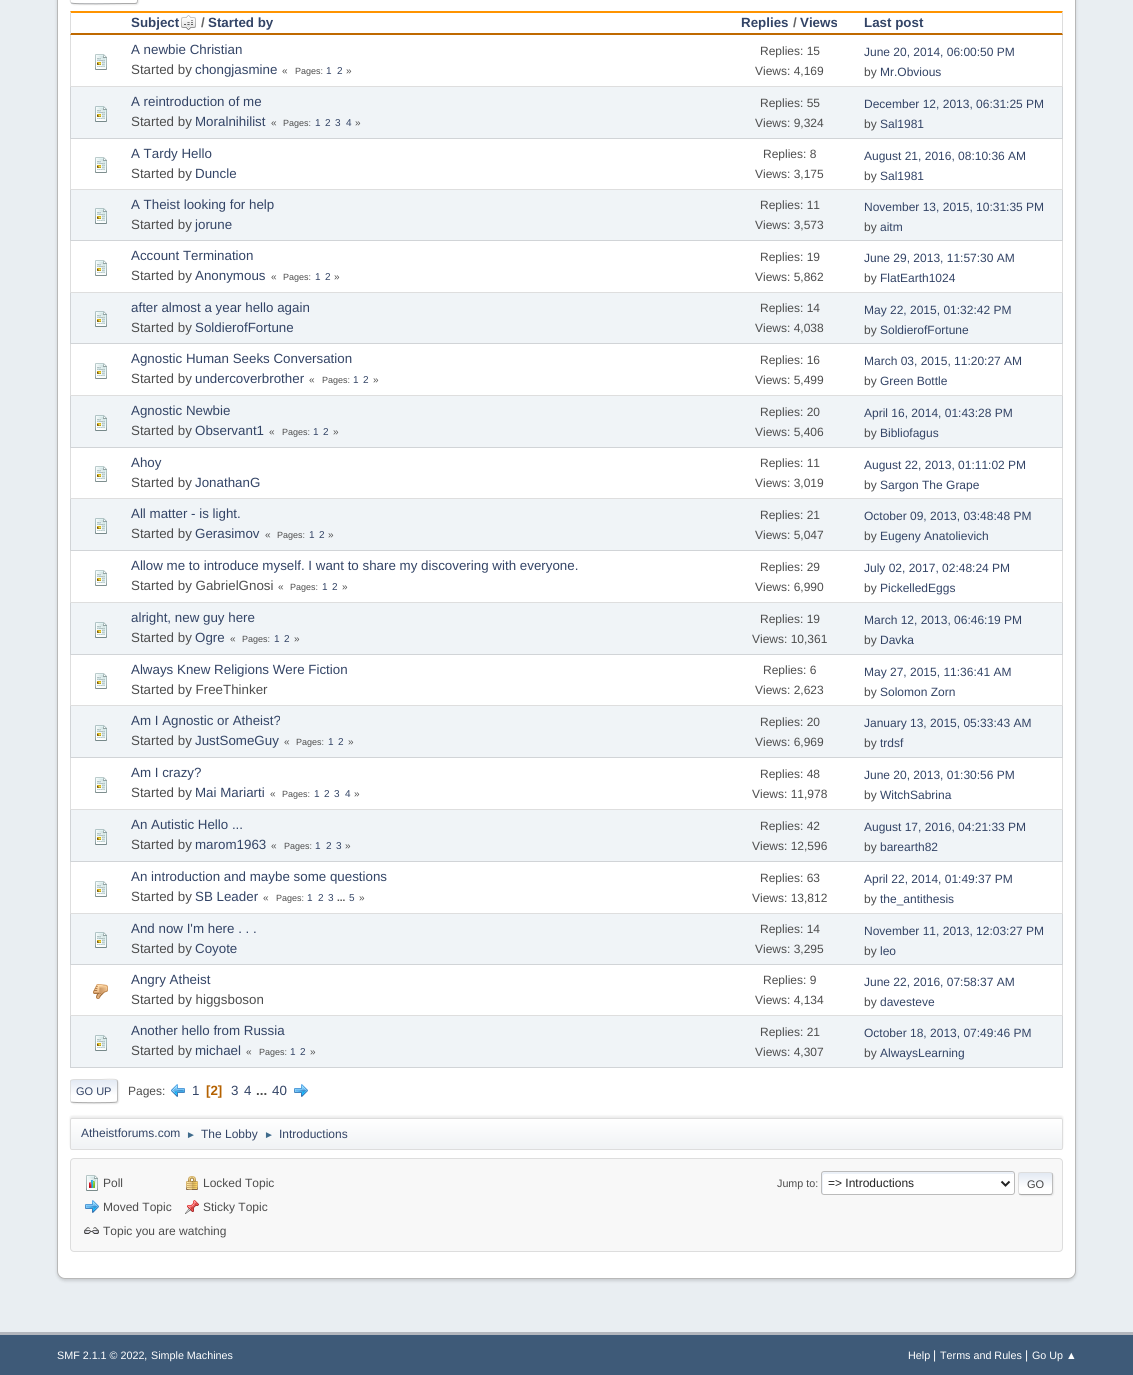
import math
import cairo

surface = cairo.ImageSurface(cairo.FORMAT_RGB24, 1133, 1375)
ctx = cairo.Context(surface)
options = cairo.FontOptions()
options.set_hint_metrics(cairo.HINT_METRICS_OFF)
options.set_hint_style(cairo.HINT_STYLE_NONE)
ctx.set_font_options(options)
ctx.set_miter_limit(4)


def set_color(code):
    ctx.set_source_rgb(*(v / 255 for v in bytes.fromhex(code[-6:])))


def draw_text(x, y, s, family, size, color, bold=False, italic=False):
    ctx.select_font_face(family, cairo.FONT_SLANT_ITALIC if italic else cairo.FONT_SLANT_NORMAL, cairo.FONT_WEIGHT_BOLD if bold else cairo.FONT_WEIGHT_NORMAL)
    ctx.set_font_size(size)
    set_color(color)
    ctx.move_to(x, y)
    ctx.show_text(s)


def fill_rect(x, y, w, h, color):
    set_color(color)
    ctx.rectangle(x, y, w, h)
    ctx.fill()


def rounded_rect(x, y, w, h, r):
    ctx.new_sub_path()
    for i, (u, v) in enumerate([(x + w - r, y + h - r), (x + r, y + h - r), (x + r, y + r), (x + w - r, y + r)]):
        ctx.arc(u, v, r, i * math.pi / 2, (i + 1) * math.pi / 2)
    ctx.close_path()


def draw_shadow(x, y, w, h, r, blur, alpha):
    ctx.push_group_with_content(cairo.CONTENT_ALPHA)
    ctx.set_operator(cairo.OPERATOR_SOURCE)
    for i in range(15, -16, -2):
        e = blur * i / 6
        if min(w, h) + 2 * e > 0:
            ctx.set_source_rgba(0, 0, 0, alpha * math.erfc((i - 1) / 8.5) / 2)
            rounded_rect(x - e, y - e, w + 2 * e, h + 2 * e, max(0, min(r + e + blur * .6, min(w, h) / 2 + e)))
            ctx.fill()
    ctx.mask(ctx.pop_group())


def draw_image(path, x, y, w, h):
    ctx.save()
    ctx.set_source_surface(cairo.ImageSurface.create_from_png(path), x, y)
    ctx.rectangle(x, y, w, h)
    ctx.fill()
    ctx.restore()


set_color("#e9eef2")
ctx.paint()
set_color("#000000")
draw_shadow(57, -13, 1019, 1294, 8, 1.5, 0.14)
set_color("#ffffff")
rounded_rect(57.5, -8.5, 1018, 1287, 7.5)
ctx.fill_preserve()
set_color("#b8b8b8")
ctx.set_line_width(1)
ctx.stroke()
set_color("#dddddd")
draw_shadow(71, -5, 68, 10, 3, 0.5, 0.57)
ctx.save()
rounded_rect(70, -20, 68, 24, 3)
ctx.clip()
gradient = cairo.LinearGradient(104, -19, 104, 3)
gradient.add_color_stop_rgba(0, 0.886, 0.914, 0.953, 1)
gradient.add_color_stop_rgba(0.7, 1, 1, 1, 1)
ctx.set_source(gradient)
ctx.rectangle(70, 0, 68, 3)
ctx.fill()
gradient = cairo.LinearGradient(104, 3, 104, 25)
gradient.add_color_stop_rgba(0, 0.886, 0.914, 0.953, 1)
gradient.add_color_stop_rgba(0.7, 1, 1, 1, 1)
ctx.set_source(gradient)
ctx.rectangle(70, 3, 68, 1)
ctx.fill()
ctx.restore()
ctx.new_path()
ctx.move_to(137, -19)
ctx.curve_to(137, -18.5, 137.5, -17.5, 137.5, -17)
ctx.line_to(137.5, 1)
ctx.curve_to(137.5, 1.5, 137, 2.5, 137, 3)
set_color("#bbbbbb")
ctx.stroke()
ctx.new_path()
ctx.move_to(137, 3)
ctx.line_to(135, 3.5)
ctx.line_to(124.5, 3.5)
ctx.curve_to(118.5, 3.5, 73.5, 4.5, 71.5, 3)
ctx.line_to(71, 3)
set_color("#aaaaaa")
ctx.stroke()
ctx.new_path()
ctx.move_to(71, 3)
ctx.curve_to(69.5, 1, 70.5, -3, 70.5, -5)
ctx.curve_to(70.5, -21.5, 67, -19.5, 83.5, -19.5)
ctx.line_to(135, -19.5)
ctx.line_to(137, -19)
set_color("#dddddd")
ctx.stroke()
set_color("#ff9400")
ctx.new_path()
ctx.move_to(70, 11)
ctx.line_to(1063, 11)
ctx.line_to(1062, 13)
ctx.line_to(71, 13)
ctx.close_path()
ctx.fill()
set_color("#dddddd")
ctx.new_path()
ctx.move_to(1063, 11)
ctx.line_to(1063, 35)
ctx.line_to(1062, 33)
ctx.line_to(1062, 13)
ctx.close_path()
ctx.fill()
set_color("#bf6900")
ctx.new_path()
ctx.move_to(1063, 35)
ctx.line_to(70, 35)
ctx.line_to(71, 33)
ctx.line_to(1062, 33)
ctx.close_path()
ctx.fill()
set_color("#dddddd")
ctx.new_path()
ctx.move_to(70, 35)
ctx.line_to(70, 11)
ctx.line_to(71, 13)
ctx.line_to(71, 33)
ctx.close_path()
ctx.fill()
draw_text(131, 27, "Subject", "Liberation Sans", 13.35, "#334466", bold=True)
draw_image("assets/img1.png", 181, 15, 15, 15)
draw_text(201, 27, "/", "Liberation Sans", 13.35, "#666666", bold=True)
draw_text(208, 27, "Started by", "Liberation Sans", 13.35, "#334466", bold=True)
draw_text(741, 27, "Replies", "Liberation Sans", 13.35, "#334466", bold=True)
draw_text(793, 27, "/", "Liberation Sans", 13.35, "#666666", bold=True)
draw_text(800, 27, "Views", "Liberation Sans", 13.35, "#334466", bold=True)
draw_text(864, 27, "Last post", "Liberation Sans", 13.35, "#334466", bold=True)
set_color("#dcdcdc")
ctx.new_path()
ctx.move_to(1063, 35)
ctx.line_to(1063, 87)
ctx.line_to(1062, 86)
ctx.line_to(1062, 35)
ctx.close_path()
ctx.fill()
ctx.set_source_rgba(0, 0, 0, 0.13)
ctx.new_path()
ctx.move_to(1063, 87)
ctx.line_to(70, 87)
ctx.line_to(71, 86)
ctx.line_to(1062, 86)
ctx.close_path()
ctx.fill()
ctx.new_path()
ctx.move_to(70, 87)
ctx.line_to(70, 35)
ctx.line_to(71, 35)
ctx.line_to(71, 86)
ctx.close_path()
ctx.fill()
draw_image("assets/img2.png", 95, 54, 12, 16)
draw_text(131, 54, "A newbie Christian", "Liberation Sans", 13.35, "#334466")
draw_text(131, 74, "Started by", "Liberation Sans", 13.35, "#4d4d4d")
draw_text(195, 74, "chongjasmine", "Liberation Sans", 13.35, "#334466")
draw_text(282, 74, "«", "Liberation Sans", 10, "#4d4d4d")
draw_text(295, 74, "Pages:", "Liberation Sans", 9, "#4d4d4d")
draw_text(326, 74, "1", "Liberation Sans", 10, "#334466")
draw_text(337, 74, "2", "Liberation Sans", 10, "#334466")
draw_text(346, 74, "»", "Liberation Sans", 10, "#4d4d4d")
draw_text(760, 55, "Replies: 15", "Liberation Sans", 12, "#4d4d4d")
draw_text(755, 75, "Views: 4,169", "Liberation Sans", 12, "#4d4d4d")
draw_text(864, 56, "June 20, 2014, 06:00:50 PM", "Liberation Sans", 12, "#334466")
draw_text(864, 76, "by", "Liberation Sans", 12, "#4d4d4d")
draw_text(880, 76, "Mr.Obvious", "Liberation Sans", 12, "#334466")
fill_rect(70, 87, 993, 52, "#f0f4f7")
set_color("#d1d4d7")
ctx.new_path()
ctx.move_to(1063, 87)
ctx.line_to(1063, 139)
ctx.line_to(1062, 138)
ctx.line_to(1062, 87)
ctx.close_path()
ctx.fill()
ctx.set_source_rgba(0, 0, 0, 0.13)
ctx.new_path()
ctx.move_to(1063, 139)
ctx.line_to(70, 139)
ctx.line_to(71, 138)
ctx.line_to(1062, 138)
ctx.close_path()
ctx.fill()
ctx.new_path()
ctx.move_to(70, 139)
ctx.line_to(70, 87)
ctx.line_to(71, 87)
ctx.line_to(71, 138)
ctx.close_path()
ctx.fill()
draw_image("assets/img3.png", 95, 106, 12, 16)
draw_text(131, 106, "A reintroduction of me", "Liberation Sans", 13.35, "#334466")
draw_text(131, 126, "Started by", "Liberation Sans", 13.35, "#4d4d4d")
draw_text(195, 126, "Moralnihilist", "Liberation Sans", 13.35, "#334466")
draw_text(271, 126, "«", "Liberation Sans", 10, "#4d4d4d")
draw_text(283, 126, "Pages:", "Liberation Sans", 9, "#4d4d4d")
draw_text(315, 126, "1", "Liberation Sans", 10, "#334466")
draw_text(325, 126, "2", "Liberation Sans", 10, "#334466")
draw_text(335, 126, "3", "Liberation Sans", 10, "#334466")
draw_text(346, 126, "4", "Liberation Sans", 10, "#334466")
draw_text(355, 126, "»", "Liberation Sans", 10, "#4d4d4d")
draw_text(760, 107, "Replies: 55", "Liberation Sans", 12, "#4d4d4d")
draw_text(755, 127, "Views: 9,324", "Liberation Sans", 12, "#4d4d4d")
draw_text(864, 108, "December 12, 2013, 06:31:25 PM", "Liberation Sans", 12, "#334466")
draw_text(864, 128, "by", "Liberation Sans", 12, "#4d4d4d")
draw_text(880, 128, "Sal1981", "Liberation Sans", 12, "#334466")
set_color("#dcdcdc")
ctx.new_path()
ctx.move_to(1063, 139)
ctx.line_to(1063, 190)
ctx.line_to(1062, 189)
ctx.line_to(1062, 139)
ctx.close_path()
ctx.fill()
ctx.set_source_rgba(0, 0, 0, 0.13)
ctx.new_path()
ctx.move_to(1063, 190)
ctx.line_to(70, 190)
ctx.line_to(71, 189)
ctx.line_to(1062, 189)
ctx.close_path()
ctx.fill()
ctx.new_path()
ctx.move_to(70, 190)
ctx.line_to(70, 139)
ctx.line_to(71, 139)
ctx.line_to(71, 189)
ctx.close_path()
ctx.fill()
draw_image("assets/img2.png", 95, 157, 12, 16)
draw_text(131, 158, "A Tardy Hello", "Liberation Sans", 13.35, "#334466")
draw_text(131, 178, "Started by", "Liberation Sans", 13.35, "#4d4d4d")
draw_text(195, 178, "Duncle", "Liberation Sans", 13.35, "#334466")
draw_text(763, 158, "Replies: 8", "Liberation Sans", 12, "#4d4d4d")
draw_text(755, 178, "Views: 3,175", "Liberation Sans", 12, "#4d4d4d")
draw_text(864, 160, "August 21, 2016, 08:10:36 AM", "Liberation Sans", 12, "#334466")
draw_text(864, 180, "by", "Liberation Sans", 12, "#4d4d4d")
draw_text(880, 180, "Sal1981", "Liberation Sans", 12, "#334466")
fill_rect(70, 190, 993, 51, "#f0f4f7")
set_color("#d1d4d7")
ctx.new_path()
ctx.move_to(1063, 190)
ctx.line_to(1063, 241)
ctx.line_to(1062, 240)
ctx.line_to(1062, 190)
ctx.close_path()
ctx.fill()
ctx.set_source_rgba(0, 0, 0, 0.13)
ctx.new_path()
ctx.move_to(1063, 241)
ctx.line_to(70, 241)
ctx.line_to(71, 240)
ctx.line_to(1062, 240)
ctx.close_path()
ctx.fill()
ctx.new_path()
ctx.move_to(70, 241)
ctx.line_to(70, 190)
ctx.line_to(71, 190)
ctx.line_to(71, 240)
ctx.close_path()
ctx.fill()
draw_image("assets/img3.png", 95, 208, 12, 16)
draw_text(131, 209, "A Theist looking for help", "Liberation Sans", 13.35, "#334466")
draw_text(131, 229, "Started by", "Liberation Sans", 13.35, "#4d4d4d")
draw_text(195, 229, "jorune", "Liberation Sans", 13.35, "#334466")
draw_text(760, 209, "Replies: 11", "Liberation Sans", 12, "#4d4d4d")
draw_text(755, 229, "Views: 3,573", "Liberation Sans", 12, "#4d4d4d")
draw_text(864, 211, "November 13, 2015, 10:31:35 PM", "Liberation Sans", 12, "#334466")
draw_text(864, 231, "by", "Liberation Sans", 12, "#4d4d4d")
draw_text(880, 231, "aitm", "Liberation Sans", 12, "#334466")
set_color("#dcdcdc")
ctx.new_path()
ctx.move_to(1063, 241)
ctx.line_to(1063, 293)
ctx.line_to(1062, 292)
ctx.line_to(1062, 241)
ctx.close_path()
ctx.fill()
ctx.set_source_rgba(0, 0, 0, 0.13)
ctx.new_path()
ctx.move_to(1063, 293)
ctx.line_to(70, 293)
ctx.line_to(71, 292)
ctx.line_to(1062, 292)
ctx.close_path()
ctx.fill()
ctx.new_path()
ctx.move_to(70, 293)
ctx.line_to(70, 241)
ctx.line_to(71, 241)
ctx.line_to(71, 292)
ctx.close_path()
ctx.fill()
draw_image("assets/img2.png", 95, 260, 12, 16)
draw_text(131, 260, "Account Termination", "Liberation Sans", 13.35, "#334466")
draw_text(131, 280, "Started by", "Liberation Sans", 13.35, "#4d4d4d")
draw_text(195, 280, "Anonymous", "Liberation Sans", 13.35, "#334466")
draw_text(271, 280, "«", "Liberation Sans", 10, "#4d4d4d")
draw_text(283, 280, "Pages:", "Liberation Sans", 9, "#4d4d4d")
draw_text(315, 280, "1", "Liberation Sans", 10, "#334466")
draw_text(325, 280, "2", "Liberation Sans", 10, "#334466")
draw_text(334, 280, "»", "Liberation Sans", 10, "#4d4d4d")
draw_text(760, 261, "Replies: 19", "Liberation Sans", 12, "#4d4d4d")
draw_text(755, 281, "Views: 5,862", "Liberation Sans", 12, "#4d4d4d")
draw_text(864, 262, "June 29, 2013, 11:57:30 AM", "Liberation Sans", 12, "#334466")
draw_text(864, 282, "by", "Liberation Sans", 12, "#4d4d4d")
draw_text(880, 282, "FlatEarth1024", "Liberation Sans", 12, "#334466")
fill_rect(70, 293, 993, 51, "#f0f4f7")
set_color("#d1d4d7")
ctx.new_path()
ctx.move_to(1063, 293)
ctx.line_to(1063, 344)
ctx.line_to(1062, 343)
ctx.line_to(1062, 293)
ctx.close_path()
ctx.fill()
ctx.set_source_rgba(0, 0, 0, 0.13)
ctx.new_path()
ctx.move_to(1063, 344)
ctx.line_to(70, 344)
ctx.line_to(71, 343)
ctx.line_to(1062, 343)
ctx.close_path()
ctx.fill()
ctx.new_path()
ctx.move_to(70, 344)
ctx.line_to(70, 293)
ctx.line_to(71, 293)
ctx.line_to(71, 343)
ctx.close_path()
ctx.fill()
draw_image("assets/img3.png", 95, 311, 12, 16)
draw_text(131, 312, "after almost a year hello again", "Liberation Sans", 13.35, "#334466")
draw_text(131, 332, "Started by", "Liberation Sans", 13.35, "#4d4d4d")
draw_text(195, 332, "SoldierofFortune", "Liberation Sans", 13.35, "#334466")
draw_text(760, 312, "Replies: 14", "Liberation Sans", 12, "#4d4d4d")
draw_text(755, 332, "Views: 4,038", "Liberation Sans", 12, "#4d4d4d")
draw_text(864, 314, "May 22, 2015, 01:32:42 PM", "Liberation Sans", 12, "#334466")
draw_text(864, 334, "by", "Liberation Sans", 12, "#4d4d4d")
draw_text(880, 334, "SoldierofFortune", "Liberation Sans", 12, "#334466")
set_color("#dcdcdc")
ctx.new_path()
ctx.move_to(1063, 344)
ctx.line_to(1063, 396)
ctx.line_to(1062, 395)
ctx.line_to(1062, 344)
ctx.close_path()
ctx.fill()
ctx.set_source_rgba(0, 0, 0, 0.13)
ctx.new_path()
ctx.move_to(1063, 396)
ctx.line_to(70, 396)
ctx.line_to(71, 395)
ctx.line_to(1062, 395)
ctx.close_path()
ctx.fill()
ctx.new_path()
ctx.move_to(70, 396)
ctx.line_to(70, 344)
ctx.line_to(71, 344)
ctx.line_to(71, 395)
ctx.close_path()
ctx.fill()
draw_image("assets/img2.png", 95, 363, 12, 16)
draw_text(131, 363, "Agnostic Human Seeks Conversation", "Liberation Sans", 13.35, "#334466")
draw_text(131, 383, "Started by", "Liberation Sans", 13.35, "#4d4d4d")
draw_text(195, 383, "undercoverbrother", "Liberation Sans", 13.35, "#334466")
draw_text(309, 383, "«", "Liberation Sans", 10, "#4d4d4d")
draw_text(322, 383, "Pages:", "Liberation Sans", 9, "#4d4d4d")
draw_text(353, 383, "1", "Liberation Sans", 10, "#334466")
draw_text(363, 383, "2", "Liberation Sans", 10, "#334466")
draw_text(373, 383, "»", "Liberation Sans", 10, "#4d4d4d")
draw_text(760, 364, "Replies: 16", "Liberation Sans", 12, "#4d4d4d")
draw_text(755, 384, "Views: 5,499", "Liberation Sans", 12, "#4d4d4d")
draw_text(864, 365, "March 03, 2015, 11:20:27 AM", "Liberation Sans", 12, "#334466")
draw_text(864, 385, "by", "Liberation Sans", 12, "#4d4d4d")
draw_text(880, 385, "Green Bottle", "Liberation Sans", 12, "#334466")
fill_rect(70, 396, 993, 52, "#f0f4f7")
set_color("#d1d4d7")
ctx.new_path()
ctx.move_to(1063, 396)
ctx.line_to(1063, 448)
ctx.line_to(1062, 447)
ctx.line_to(1062, 396)
ctx.close_path()
ctx.fill()
ctx.set_source_rgba(0, 0, 0, 0.13)
ctx.new_path()
ctx.move_to(1063, 448)
ctx.line_to(70, 448)
ctx.line_to(71, 447)
ctx.line_to(1062, 447)
ctx.close_path()
ctx.fill()
ctx.new_path()
ctx.move_to(70, 448)
ctx.line_to(70, 396)
ctx.line_to(71, 396)
ctx.line_to(71, 447)
ctx.close_path()
ctx.fill()
draw_image("assets/img3.png", 95, 415, 12, 16)
draw_text(131, 415, "Agnostic Newbie", "Liberation Sans", 13.35, "#334466")
draw_text(131, 435, "Started by", "Liberation Sans", 13.35, "#4d4d4d")
draw_text(195, 435, "Observant1", "Liberation Sans", 13.35, "#334466")
draw_text(269, 435, "«", "Liberation Sans", 10, "#4d4d4d")
draw_text(282, 435, "Pages:", "Liberation Sans", 9, "#4d4d4d")
draw_text(313, 435, "1", "Liberation Sans", 10, "#334466")
draw_text(323, 435, "2", "Liberation Sans", 10, "#334466")
draw_text(333, 435, "»", "Liberation Sans", 10, "#4d4d4d")
draw_text(760, 416, "Replies: 20", "Liberation Sans", 12, "#4d4d4d")
draw_text(755, 436, "Views: 5,406", "Liberation Sans", 12, "#4d4d4d")
draw_text(864, 417, "April 16, 2014, 01:43:28 PM", "Liberation Sans", 12, "#334466")
draw_text(864, 437, "by", "Liberation Sans", 12, "#4d4d4d")
draw_text(880, 437, "Bibliofagus", "Liberation Sans", 12, "#334466")
set_color("#dcdcdc")
ctx.new_path()
ctx.move_to(1063, 448)
ctx.line_to(1063, 499)
ctx.line_to(1062, 498)
ctx.line_to(1062, 448)
ctx.close_path()
ctx.fill()
ctx.set_source_rgba(0, 0, 0, 0.13)
ctx.new_path()
ctx.move_to(1063, 499)
ctx.line_to(70, 499)
ctx.line_to(71, 498)
ctx.line_to(1062, 498)
ctx.close_path()
ctx.fill()
ctx.new_path()
ctx.move_to(70, 499)
ctx.line_to(70, 448)
ctx.line_to(71, 448)
ctx.line_to(71, 498)
ctx.close_path()
ctx.fill()
draw_image("assets/img2.png", 95, 466, 12, 16)
draw_text(131, 467, "Ahoy", "Liberation Sans", 13.35, "#334466")
draw_text(131, 487, "Started by", "Liberation Sans", 13.35, "#4d4d4d")
draw_text(195, 487, "JonathanG", "Liberation Sans", 13.35, "#334466")
draw_text(760, 467, "Replies: 11", "Liberation Sans", 12, "#4d4d4d")
draw_text(755, 487, "Views: 3,019", "Liberation Sans", 12, "#4d4d4d")
draw_text(864, 469, "August 22, 2013, 01:11:02 PM", "Liberation Sans", 12, "#334466")
draw_text(864, 489, "by", "Liberation Sans", 12, "#4d4d4d")
draw_text(880, 489, "Sargon The Grape", "Liberation Sans", 12, "#334466")
fill_rect(70, 499, 993, 52, "#f0f4f7")
set_color("#d1d4d7")
ctx.new_path()
ctx.move_to(1063, 499)
ctx.line_to(1063, 551)
ctx.line_to(1062, 550)
ctx.line_to(1062, 499)
ctx.close_path()
ctx.fill()
ctx.set_source_rgba(0, 0, 0, 0.13)
ctx.new_path()
ctx.move_to(1063, 551)
ctx.line_to(70, 551)
ctx.line_to(71, 550)
ctx.line_to(1062, 550)
ctx.close_path()
ctx.fill()
ctx.new_path()
ctx.move_to(70, 551)
ctx.line_to(70, 499)
ctx.line_to(71, 499)
ctx.line_to(71, 550)
ctx.close_path()
ctx.fill()
draw_image("assets/img3.png", 95, 518, 12, 16)
draw_text(131, 518, "All matter - is light.", "Liberation Sans", 13.35, "#334466")
draw_text(131, 538, "Started by", "Liberation Sans", 13.35, "#4d4d4d")
draw_text(195, 538, "Gerasimov", "Liberation Sans", 13.35, "#334466")
draw_text(265, 538, "«", "Liberation Sans", 10, "#4d4d4d")
draw_text(277, 538, "Pages:", "Liberation Sans", 9, "#4d4d4d")
draw_text(309, 538, "1", "Liberation Sans", 10, "#334466")
draw_text(319, 538, "2", "Liberation Sans", 10, "#334466")
draw_text(328, 538, "»", "Liberation Sans", 10, "#4d4d4d")
draw_text(760, 519, "Replies: 21", "Liberation Sans", 12, "#4d4d4d")
draw_text(755, 539, "Views: 5,047", "Liberation Sans", 12, "#4d4d4d")
draw_text(864, 520, "October 09, 2013, 03:48:48 PM", "Liberation Sans", 12, "#334466")
draw_text(864, 540, "by", "Liberation Sans", 12, "#4d4d4d")
draw_text(880, 540, "Eugeny Anatolievich", "Liberation Sans", 12, "#334466")
set_color("#dcdcdc")
ctx.new_path()
ctx.move_to(1063, 551)
ctx.line_to(1063, 603)
ctx.line_to(1062, 602)
ctx.line_to(1062, 551)
ctx.close_path()
ctx.fill()
ctx.set_source_rgba(0, 0, 0, 0.13)
ctx.new_path()
ctx.move_to(1063, 603)
ctx.line_to(70, 603)
ctx.line_to(71, 602)
ctx.line_to(1062, 602)
ctx.close_path()
ctx.fill()
ctx.new_path()
ctx.move_to(70, 603)
ctx.line_to(70, 551)
ctx.line_to(71, 551)
ctx.line_to(71, 602)
ctx.close_path()
ctx.fill()
draw_image("assets/img2.png", 95, 570, 12, 16)
draw_text(131, 570, "Allow me to introduce myself. I want to share my discovering with everyone.", "Liberation Sans", 13.35, "#334466")
draw_text(131, 590, "Started by GabrielGnosi", "Liberation Sans", 13.35, "#4d4d4d")
draw_text(278, 590, "«", "Liberation Sans", 10, "#4d4d4d")
draw_text(290, 590, "Pages:", "Liberation Sans", 9, "#4d4d4d")
draw_text(322, 590, "1", "Liberation Sans", 10, "#334466")
draw_text(332, 590, "2", "Liberation Sans", 10, "#334466")
draw_text(342, 590, "»", "Liberation Sans", 10, "#4d4d4d")
draw_text(760, 571, "Replies: 29", "Liberation Sans", 12, "#4d4d4d")
draw_text(755, 591, "Views: 6,990", "Liberation Sans", 12, "#4d4d4d")
draw_text(864, 572, "July 02, 2017, 02:48:24 PM", "Liberation Sans", 12, "#334466")
draw_text(864, 592, "by", "Liberation Sans", 12, "#4d4d4d")
draw_text(880, 592, "PickelledEggs", "Liberation Sans", 12, "#334466")
fill_rect(70, 603, 993, 52, "#f0f4f7")
set_color("#d1d4d7")
ctx.new_path()
ctx.move_to(1063, 603)
ctx.line_to(1063, 655)
ctx.line_to(1062, 654)
ctx.line_to(1062, 603)
ctx.close_path()
ctx.fill()
ctx.set_source_rgba(0, 0, 0, 0.13)
ctx.new_path()
ctx.move_to(1063, 655)
ctx.line_to(70, 655)
ctx.line_to(71, 654)
ctx.line_to(1062, 654)
ctx.close_path()
ctx.fill()
ctx.new_path()
ctx.move_to(70, 655)
ctx.line_to(70, 603)
ctx.line_to(71, 603)
ctx.line_to(71, 654)
ctx.close_path()
ctx.fill()
draw_image("assets/img3.png", 95, 622, 12, 16)
draw_text(131, 622, "alright, new guy here", "Liberation Sans", 13.35, "#334466")
draw_text(131, 642, "Started by", "Liberation Sans", 13.35, "#4d4d4d")
draw_text(195, 642, "Ogre", "Liberation Sans", 13.35, "#334466")
draw_text(230, 642, "«", "Liberation Sans", 10, "#4d4d4d")
draw_text(242, 642, "Pages:", "Liberation Sans", 9, "#4d4d4d")
draw_text(274, 642, "1", "Liberation Sans", 10, "#334466")
draw_text(284, 642, "2", "Liberation Sans", 10, "#334466")
draw_text(294, 642, "»", "Liberation Sans", 10, "#4d4d4d")
draw_text(760, 623, "Replies: 19", "Liberation Sans", 12, "#4d4d4d")
draw_text(752, 643, "Views: 10,361", "Liberation Sans", 12, "#4d4d4d")
draw_text(864, 624, "March 12, 2013, 06:46:19 PM", "Liberation Sans", 12, "#334466")
draw_text(864, 644, "by", "Liberation Sans", 12, "#4d4d4d")
draw_text(880, 644, "Davka", "Liberation Sans", 12, "#334466")
set_color("#dcdcdc")
ctx.new_path()
ctx.move_to(1063, 655)
ctx.line_to(1063, 706)
ctx.line_to(1062, 705)
ctx.line_to(1062, 655)
ctx.close_path()
ctx.fill()
ctx.set_source_rgba(0, 0, 0, 0.13)
ctx.new_path()
ctx.move_to(1063, 706)
ctx.line_to(70, 706)
ctx.line_to(71, 705)
ctx.line_to(1062, 705)
ctx.close_path()
ctx.fill()
ctx.new_path()
ctx.move_to(70, 706)
ctx.line_to(70, 655)
ctx.line_to(71, 655)
ctx.line_to(71, 705)
ctx.close_path()
ctx.fill()
draw_image("assets/img2.png", 95, 673, 12, 16)
draw_text(131, 674, "Always Knew Religions Were Fiction", "Liberation Sans", 13.35, "#334466")
draw_text(131, 694, "Started by FreeThinker", "Liberation Sans", 13.35, "#4d4d4d")
draw_text(763, 674, "Replies: 6", "Liberation Sans", 12, "#4d4d4d")
draw_text(755, 694, "Views: 2,623", "Liberation Sans", 12, "#4d4d4d")
draw_text(864, 676, "May 27, 2015, 11:36:41 AM", "Liberation Sans", 12, "#334466")
draw_text(864, 696, "by", "Liberation Sans", 12, "#4d4d4d")
draw_text(880, 696, "Solomon Zorn", "Liberation Sans", 12, "#334466")
fill_rect(70, 706, 993, 52, "#f0f4f7")
set_color("#d1d4d7")
ctx.new_path()
ctx.move_to(1063, 706)
ctx.line_to(1063, 758)
ctx.line_to(1062, 757)
ctx.line_to(1062, 706)
ctx.close_path()
ctx.fill()
ctx.set_source_rgba(0, 0, 0, 0.13)
ctx.new_path()
ctx.move_to(1063, 758)
ctx.line_to(70, 758)
ctx.line_to(71, 757)
ctx.line_to(1062, 757)
ctx.close_path()
ctx.fill()
ctx.new_path()
ctx.move_to(70, 758)
ctx.line_to(70, 706)
ctx.line_to(71, 706)
ctx.line_to(71, 757)
ctx.close_path()
ctx.fill()
draw_image("assets/img3.png", 95, 725, 12, 16)
draw_text(131, 725, "Am I Agnostic or Atheist?", "Liberation Sans", 13.35, "#334466")
draw_text(131, 745, "Started by", "Liberation Sans", 13.35, "#4d4d4d")
draw_text(195, 745, "JustSomeGuy", "Liberation Sans", 13.35, "#334466")
draw_text(284, 745, "«", "Liberation Sans", 10, "#4d4d4d")
draw_text(296, 745, "Pages:", "Liberation Sans", 9, "#4d4d4d")
draw_text(328, 745, "1", "Liberation Sans", 10, "#334466")
draw_text(338, 745, "2", "Liberation Sans", 10, "#334466")
draw_text(348, 745, "»", "Liberation Sans", 10, "#4d4d4d")
draw_text(760, 726, "Replies: 20", "Liberation Sans", 12, "#4d4d4d")
draw_text(755, 746, "Views: 6,969", "Liberation Sans", 12, "#4d4d4d")
draw_text(864, 727, "January 13, 2015, 05:33:43 AM", "Liberation Sans", 12, "#334466")
draw_text(864, 747, "by", "Liberation Sans", 12, "#4d4d4d")
draw_text(880, 747, "trdsf", "Liberation Sans", 12, "#334466")
set_color("#dcdcdc")
ctx.new_path()
ctx.move_to(1063, 758)
ctx.line_to(1063, 810)
ctx.line_to(1062, 809)
ctx.line_to(1062, 758)
ctx.close_path()
ctx.fill()
ctx.set_source_rgba(0, 0, 0, 0.13)
ctx.new_path()
ctx.move_to(1063, 810)
ctx.line_to(70, 810)
ctx.line_to(71, 809)
ctx.line_to(1062, 809)
ctx.close_path()
ctx.fill()
ctx.new_path()
ctx.move_to(70, 810)
ctx.line_to(70, 758)
ctx.line_to(71, 758)
ctx.line_to(71, 809)
ctx.close_path()
ctx.fill()
draw_image("assets/img2.png", 95, 777, 12, 16)
draw_text(131, 777, "Am I crazy?", "Liberation Sans", 13.35, "#334466")
draw_text(131, 797, "Started by", "Liberation Sans", 13.35, "#4d4d4d")
draw_text(195, 797, "Mai Mariarti", "Liberation Sans", 13.35, "#334466")
draw_text(270, 797, "«", "Liberation Sans", 10, "#4d4d4d")
draw_text(282, 797, "Pages:", "Liberation Sans", 9, "#4d4d4d")
draw_text(314, 797, "1", "Liberation Sans", 10, "#334466")
draw_text(324, 797, "2", "Liberation Sans", 10, "#334466")
draw_text(334, 797, "3", "Liberation Sans", 10, "#334466")
draw_text(345, 797, "4", "Liberation Sans", 10, "#334466")
draw_text(354, 797, "»", "Liberation Sans", 10, "#4d4d4d")
draw_text(760, 778, "Replies: 48", "Liberation Sans", 12, "#4d4d4d")
draw_text(752, 798, "Views: 11,978", "Liberation Sans", 12, "#4d4d4d")
draw_text(864, 779, "June 20, 2013, 01:30:56 PM", "Liberation Sans", 12, "#334466")
draw_text(864, 799, "by", "Liberation Sans", 12, "#4d4d4d")
draw_text(880, 799, "WitchSabrina", "Liberation Sans", 12, "#334466")
fill_rect(70, 810, 993, 52, "#f0f4f7")
set_color("#d1d4d7")
ctx.new_path()
ctx.move_to(1063, 810)
ctx.line_to(1063, 862)
ctx.line_to(1062, 861)
ctx.line_to(1062, 810)
ctx.close_path()
ctx.fill()
ctx.set_source_rgba(0, 0, 0, 0.13)
ctx.new_path()
ctx.move_to(1063, 862)
ctx.line_to(70, 862)
ctx.line_to(71, 861)
ctx.line_to(1062, 861)
ctx.close_path()
ctx.fill()
ctx.new_path()
ctx.move_to(70, 862)
ctx.line_to(70, 810)
ctx.line_to(71, 810)
ctx.line_to(71, 861)
ctx.close_path()
ctx.fill()
draw_image("assets/img3.png", 95, 829, 12, 16)
draw_text(131, 829, "An Autistic Hello ...", "Liberation Sans", 13.35, "#334466")
draw_text(131, 849, "Started by", "Liberation Sans", 13.35, "#4d4d4d")
draw_text(195, 849, "marom1963", "Liberation Sans", 13.35, "#334466")
draw_text(271, 849, "«", "Liberation Sans", 10, "#4d4d4d")
draw_text(284, 849, "Pages:", "Liberation Sans", 9, "#4d4d4d")
draw_text(315, 849, "1", "Liberation Sans", 10, "#334466")
draw_text(326, 849, "2", "Liberation Sans", 10, "#334466")
draw_text(336, 849, "3", "Liberation Sans", 10, "#334466")
draw_text(345, 849, "»", "Liberation Sans", 10, "#4d4d4d")
draw_text(760, 830, "Replies: 42", "Liberation Sans", 12, "#4d4d4d")
draw_text(752, 850, "Views: 12,596", "Liberation Sans", 12, "#4d4d4d")
draw_text(864, 831, "August 17, 2016, 04:21:33 PM", "Liberation Sans", 12, "#334466")
draw_text(864, 851, "by", "Liberation Sans", 12, "#4d4d4d")
draw_text(880, 851, "barearth82", "Liberation Sans", 12, "#334466")
set_color("#dcdcdc")
ctx.new_path()
ctx.move_to(1063, 862)
ctx.line_to(1063, 914)
ctx.line_to(1062, 913)
ctx.line_to(1062, 862)
ctx.close_path()
ctx.fill()
ctx.set_source_rgba(0, 0, 0, 0.13)
ctx.new_path()
ctx.move_to(1063, 914)
ctx.line_to(70, 914)
ctx.line_to(71, 913)
ctx.line_to(1062, 913)
ctx.close_path()
ctx.fill()
ctx.new_path()
ctx.move_to(70, 914)
ctx.line_to(70, 862)
ctx.line_to(71, 862)
ctx.line_to(71, 913)
ctx.close_path()
ctx.fill()
draw_image("assets/img2.png", 95, 881, 12, 16)
draw_text(131, 881, "An introduction and maybe some questions", "Liberation Sans", 13.35, "#334466")
draw_text(131, 901, "Started by", "Liberation Sans", 13.35, "#4d4d4d")
draw_text(195, 901, "SB Leader", "Liberation Sans", 13.35, "#334466")
draw_text(263, 901, "«", "Liberation Sans", 10, "#4d4d4d")
draw_text(276, 901, "Pages:", "Liberation Sans", 9, "#4d4d4d")
draw_text(307, 901, "1", "Liberation Sans", 10, "#334466")
draw_text(318, 901, "2", "Liberation Sans", 10, "#334466")
draw_text(328, 901, "3", "Liberation Sans", 10, "#334466")
draw_text(337, 901, "...", "Liberation Sans", 10, "#4d4d4d", bold=True)
draw_text(349, 901, "5", "Liberation Sans", 10, "#334466")
draw_text(359, 901, "»", "Liberation Sans", 10, "#4d4d4d")
draw_text(760, 882, "Replies: 63", "Liberation Sans", 12, "#4d4d4d")
draw_text(752, 902, "Views: 13,812", "Liberation Sans", 12, "#4d4d4d")
draw_text(864, 883, "April 22, 2014, 01:49:37 PM", "Liberation Sans", 12, "#334466")
draw_text(864, 903, "by", "Liberation Sans", 12, "#4d4d4d")
draw_text(880, 903, "the_antithesis", "Liberation Sans", 12, "#334466")
fill_rect(70, 914, 993, 51, "#f0f4f7")
set_color("#d1d4d7")
ctx.new_path()
ctx.move_to(1063, 914)
ctx.line_to(1063, 965)
ctx.line_to(1062, 964)
ctx.line_to(1062, 914)
ctx.close_path()
ctx.fill()
ctx.set_source_rgba(0, 0, 0, 0.13)
ctx.new_path()
ctx.move_to(1063, 965)
ctx.line_to(70, 965)
ctx.line_to(71, 964)
ctx.line_to(1062, 964)
ctx.close_path()
ctx.fill()
ctx.new_path()
ctx.move_to(70, 965)
ctx.line_to(70, 914)
ctx.line_to(71, 914)
ctx.line_to(71, 964)
ctx.close_path()
ctx.fill()
draw_image("assets/img3.png", 95, 932, 12, 16)
draw_text(131, 933, "And now I'm here . . .", "Liberation Sans", 13.35, "#334466")
draw_text(131, 953, "Started by", "Liberation Sans", 13.35, "#4d4d4d")
draw_text(195, 953, "Coyote", "Liberation Sans", 13.35, "#334466")
draw_text(760, 933, "Replies: 14", "Liberation Sans", 12, "#4d4d4d")
draw_text(755, 953, "Views: 3,295", "Liberation Sans", 12, "#4d4d4d")
draw_text(864, 935, "November 11, 2013, 12:03:27 PM", "Liberation Sans", 12, "#334466")
draw_text(864, 955, "by", "Liberation Sans", 12, "#4d4d4d")
draw_text(880, 955, "leo", "Liberation Sans", 12, "#334466")
set_color("#dcdcdc")
ctx.new_path()
ctx.move_to(1063, 965)
ctx.line_to(1063, 1016)
ctx.line_to(1062, 1015)
ctx.line_to(1062, 965)
ctx.close_path()
ctx.fill()
ctx.set_source_rgba(0, 0, 0, 0.13)
ctx.new_path()
ctx.move_to(1063, 1016)
ctx.line_to(70, 1016)
ctx.line_to(71, 1015)
ctx.line_to(1062, 1015)
ctx.close_path()
ctx.fill()
ctx.new_path()
ctx.move_to(70, 1016)
ctx.line_to(70, 965)
ctx.line_to(71, 965)
ctx.line_to(71, 1015)
ctx.close_path()
ctx.fill()
draw_image("assets/img4.png", 93, 984, 15, 15)
draw_text(131, 984, "Angry Atheist", "Liberation Sans", 13.35, "#334466")
draw_text(131, 1004, "Started by higgsboson", "Liberation Sans", 13.35, "#4d4d4d")
draw_text(763, 984, "Replies: 9", "Liberation Sans", 12, "#4d4d4d")
draw_text(755, 1004, "Views: 4,134", "Liberation Sans", 12, "#4d4d4d")
draw_text(864, 986, "June 22, 2016, 07:58:37 AM", "Liberation Sans", 12, "#334466")
draw_text(864, 1006, "by", "Liberation Sans", 12, "#4d4d4d")
draw_text(880, 1006, "davesteve", "Liberation Sans", 12, "#334466")
fill_rect(70, 1016, 993, 52, "#f0f4f7")
set_color("#d1d4d7")
ctx.new_path()
ctx.move_to(1063, 1016)
ctx.line_to(1063, 1068)
ctx.line_to(1062, 1067)
ctx.line_to(1062, 1016)
ctx.close_path()
ctx.fill()
ctx.set_source_rgba(0, 0, 0, 0.13)
ctx.new_path()
ctx.move_to(1063, 1068)
ctx.line_to(70, 1068)
ctx.line_to(71, 1067)
ctx.line_to(1062, 1067)
ctx.close_path()
ctx.fill()
ctx.new_path()
ctx.move_to(70, 1068)
ctx.line_to(70, 1016)
ctx.line_to(71, 1016)
ctx.line_to(71, 1067)
ctx.close_path()
ctx.fill()
draw_image("assets/img3.png", 95, 1035, 12, 16)
draw_text(131, 1035, "Another hello from Russia", "Liberation Sans", 13.35, "#334466")
draw_text(131, 1055, "Started by", "Liberation Sans", 13.35, "#4d4d4d")
draw_text(195, 1055, "michael", "Liberation Sans", 13.35, "#334466")
draw_text(246, 1055, "«", "Liberation Sans", 10, "#4d4d4d")
draw_text(259, 1055, "Pages:", "Liberation Sans", 9, "#4d4d4d")
draw_text(290, 1055, "1", "Liberation Sans", 10, "#334466")
draw_text(300, 1055, "2", "Liberation Sans", 10, "#334466")
draw_text(310, 1055, "»", "Liberation Sans", 10, "#4d4d4d")
draw_text(760, 1036, "Replies: 21", "Liberation Sans", 12, "#4d4d4d")
draw_text(755, 1056, "Views: 4,307", "Liberation Sans", 12, "#4d4d4d")
draw_text(864, 1037, "October 18, 2013, 07:49:46 PM", "Liberation Sans", 12, "#334466")
draw_text(864, 1057, "by", "Liberation Sans", 12, "#4d4d4d")
draw_text(880, 1057, "AlwaysLearning", "Liberation Sans", 12, "#334466")
set_color("#dddddd")
draw_shadow(71, 1080, 48, 24, 3, 0.5, 0.57)
set_color("#ffffff")
rounded_rect(70, 1079, 48, 24, 3)
ctx.fill()
ctx.save()
rounded_rect(70, 1079, 48, 24, 3)
ctx.clip()
gradient = cairo.LinearGradient(94, 1080, 94, 1102)
gradient.add_color_stop_rgba(0, 0.886, 0.914, 0.953, 1)
gradient.add_color_stop_rgba(0.7, 1, 1, 1, 1)
ctx.set_source(gradient)
ctx.rectangle(70, 1080, 48, 22)
ctx.fill()
ctx.restore()
ctx.new_path()
ctx.move_to(117, 1080)
ctx.curve_to(117, 1080.5, 117.5, 1081.5, 117.5, 1082)
ctx.line_to(117.5, 1100)
ctx.curve_to(117.5, 1100.5, 117, 1101.5, 117, 1102)
set_color("#bbbbbb")
ctx.stroke()
ctx.new_path()
ctx.move_to(117, 1102)
ctx.curve_to(115.5, 1103, 72.5, 1103, 71, 1102)
set_color("#aaaaaa")
ctx.stroke()
ctx.save()
ctx.rectangle(70, 1072, 993, 38)
ctx.clip()
ctx.new_path()
ctx.move_to(71, 1102)
ctx.curve_to(69.5, 1100, 70.5, 1093, 70.5, 1091)
ctx.curve_to(70.5, 1079, 68, 1079.5, 80, 1079.5)
ctx.line_to(101, 1079.5)
ctx.curve_to(103.5, 1079.5, 115, 1078.5, 117, 1080)
set_color("#dddddd")
ctx.stroke()
ctx.restore()
draw_text(76, 1095, "GO UP", "Liberation Sans", 11, "#334466")
draw_text(128, 1095, "Pages:", "Liberation Sans", 12, "#4d4d4d")
draw_image("assets/img5.png", 171, 1084, 14, 13)
draw_text(192, 1095, "1", "Liberation Sans", 13.35, "#334466")
draw_text(206, 1095, "[2]", "Liberation Sans", 13.35, "#b46100", bold=True)
draw_text(231, 1095, "3", "Liberation Sans", 13.35, "#334466")
draw_text(244, 1095, "4", "Liberation Sans", 13.35, "#334466")
draw_text(256, 1095, "...", "Liberation Sans", 13.35, "#4d4d4d", bold=True)
draw_text(272, 1095, "40", "Liberation Sans", 13.35, "#334466")
draw_image("assets/img6.png", 294, 1084, 14, 13)
set_color("#000000")
draw_shadow(70, 1116, 993, 32, 2, 1, 0.08)
ctx.save()
rounded_rect(70, 1118, 993, 32, 2)
ctx.clip()
gradient = cairo.LinearGradient(567, 1119, 567, 1149)
gradient.add_color_stop_rgba(0, 1, 1, 1, 1)
gradient.add_color_stop_rgba(0.95, 0.945, 0.953, 0.961, 1)
ctx.set_source(gradient)
ctx.rectangle(70, 1119, 993, 30)
ctx.fill()
ctx.restore()
rounded_rect(70.5, 1118.5, 992, 31, 1.5)
set_color("#dddddd")
ctx.stroke()
draw_text(81, 1137, "Atheistforums.com", "Liberation Sans", 12, "#334466")
draw_text(186, 1138, "►", "Liberation Sans", 10, "#3f6b8c")
draw_text(201, 1138, "The Lobby", "Liberation Sans", 12, "#334466")
draw_text(264, 1138, "►", "Liberation Sans", 10, "#3f6b8c")
draw_text(279, 1138, "Introductions", "Liberation Sans", 12, "#334466")
set_color("#f8f8f8")
rounded_rect(70.5, 1158.5, 992, 93, 3.5)
ctx.fill_preserve()
set_color("#dddddd")
ctx.stroke()
draw_image("assets/img7.png", 86, 1175, 12, 16)
draw_text(103, 1187, "Poll", "Liberation Sans", 12, "#4d4d4d")
draw_image("assets/img8.png", 85, 1200, 14, 13)
draw_text(103, 1211, "Moved Topic", "Liberation Sans", 12, "#4d4d4d")
draw_image("assets/img9.png", 186, 1176, 12, 14)
draw_text(203, 1187, "Locked Topic", "Liberation Sans", 12, "#4d4d4d")
draw_image("assets/img10.png", 185, 1200, 14, 14)
draw_text(203, 1211, "Sticky Topic", "Liberation Sans", 12, "#4d4d4d")
draw_image("assets/img11.png", 84, 1227, 15, 7)
draw_text(103, 1235, "Topic you are watching", "Liberation Sans", 12, "#4d4d4d")
draw_text(777, 1187, "Jump to:", "Liberation Sans", 10.75, "#4d4d4d")
set_color("#ffffff")
rounded_rect(821, 1171, 194, 24, 3)
ctx.fill()
set_color("#ecf1f8")
ctx.new_path()
ctx.move_to(825, 1174)
ctx.line_to(1014, 1174)
ctx.curve_to(1014, 1173, 1013, 1172, 1012, 1172)
ctx.line_to(824, 1172)
ctx.curve_to(823, 1172, 822, 1173, 822, 1174)
ctx.line_to(822, 1192)
ctx.curve_to(822, 1193, 822, 1193, 823, 1194)
ctx.line_to(823, 1176)
ctx.curve_to(823, 1175, 824, 1174, 825, 1174)
ctx.close_path()
ctx.fill()
rounded_rect(821.5, 1171.5, 193, 23, 2.5)
set_color("#bbbbbb")
ctx.stroke()
ctx.new_path()
ctx.move_to(1001.5, 1181.5)
ctx.line_to(1005.5, 1185.5)
ctx.line_to(1009.5, 1181.5)
set_color("#222222")
ctx.set_line_width(2)
ctx.stroke()
draw_text(828, 1187, "=> Introductions", "Liberation Sans", 12, "#222222")
set_color("#dddddd")
draw_shadow(1019, 1173, 35, 23, 3, 0.5, 0.57)
ctx.save()
rounded_rect(1018, 1172, 35, 23, 3)
ctx.clip()
gradient = cairo.LinearGradient(1036, 1173, 1036, 1194)
gradient.add_color_stop_rgba(0, 0.886, 0.914, 0.953, 1)
gradient.add_color_stop_rgba(0.7, 1, 1, 1, 1)
ctx.set_source(gradient)
ctx.rectangle(1018, 1173, 35, 21)
ctx.fill()
ctx.restore()
ctx.new_path()
ctx.move_to(1052, 1173)
ctx.curve_to(1052, 1173.5, 1052.5, 1174.5, 1052.5, 1175)
ctx.line_to(1052.5, 1192)
ctx.curve_to(1052.5, 1192.5, 1052, 1193.5, 1052, 1194)
set_color("#bbbbbb")
ctx.set_line_width(1)
ctx.stroke()
ctx.new_path()
ctx.move_to(1052, 1194)
ctx.curve_to(1051.5, 1194, 1050.5, 1194.5, 1050, 1194.5)
ctx.line_to(1021, 1194.5)
ctx.curve_to(1020.5, 1194.5, 1019.5, 1194, 1019, 1194)
set_color("#aaaaaa")
ctx.stroke()
ctx.new_path()
ctx.move_to(1019, 1194)
ctx.curve_to(1019, 1193.5, 1018.5, 1192.5, 1018.5, 1192)
ctx.line_to(1018.5, 1175)
ctx.curve_to(1018.5, 1174.5, 1019, 1173.5, 1019, 1173)
ctx.curve_to(1019.5, 1173, 1020.5, 1172.5, 1021, 1172.5)
ctx.line_to(1050, 1172.5)
ctx.curve_to(1050.5, 1172.5, 1051.5, 1173, 1052, 1173)
set_color("#dddddd")
ctx.stroke()
draw_text(1027, 1188, "GO", "Liberation Sans", 11, "#444444")
fill_rect(0, 1335, 1133, 40, "#3e5a78")
fill_rect(0, 1332, 1133, 3, "#b2b6bd")
draw_text(57, 1359, "SMF 2.1.1 © 2022", "Liberation Sans", 10.75, "#ffffff")
draw_text(144, 1359, ",", "Liberation Sans", 12, "#ffffff")
draw_text(151, 1359, "Simple Machines", "Liberation Sans", 10.75, "#ffffff")
draw_text(908, 1359, "Help", "Liberation Sans", 10.75, "#ffffff")
draw_text(933, 1359, "|", "Liberation Sans", 12, "#ffffff")
draw_text(940, 1359, "Terms and Rules", "Liberation Sans", 10.75, "#ffffff")
draw_text(1025, 1359, "|", "Liberation Sans", 12, "#ffffff")
draw_text(1032, 1359, "Go Up ▲", "Liberation Sans", 10.75, "#ffffff")
surface.write_to_png("output.png")
